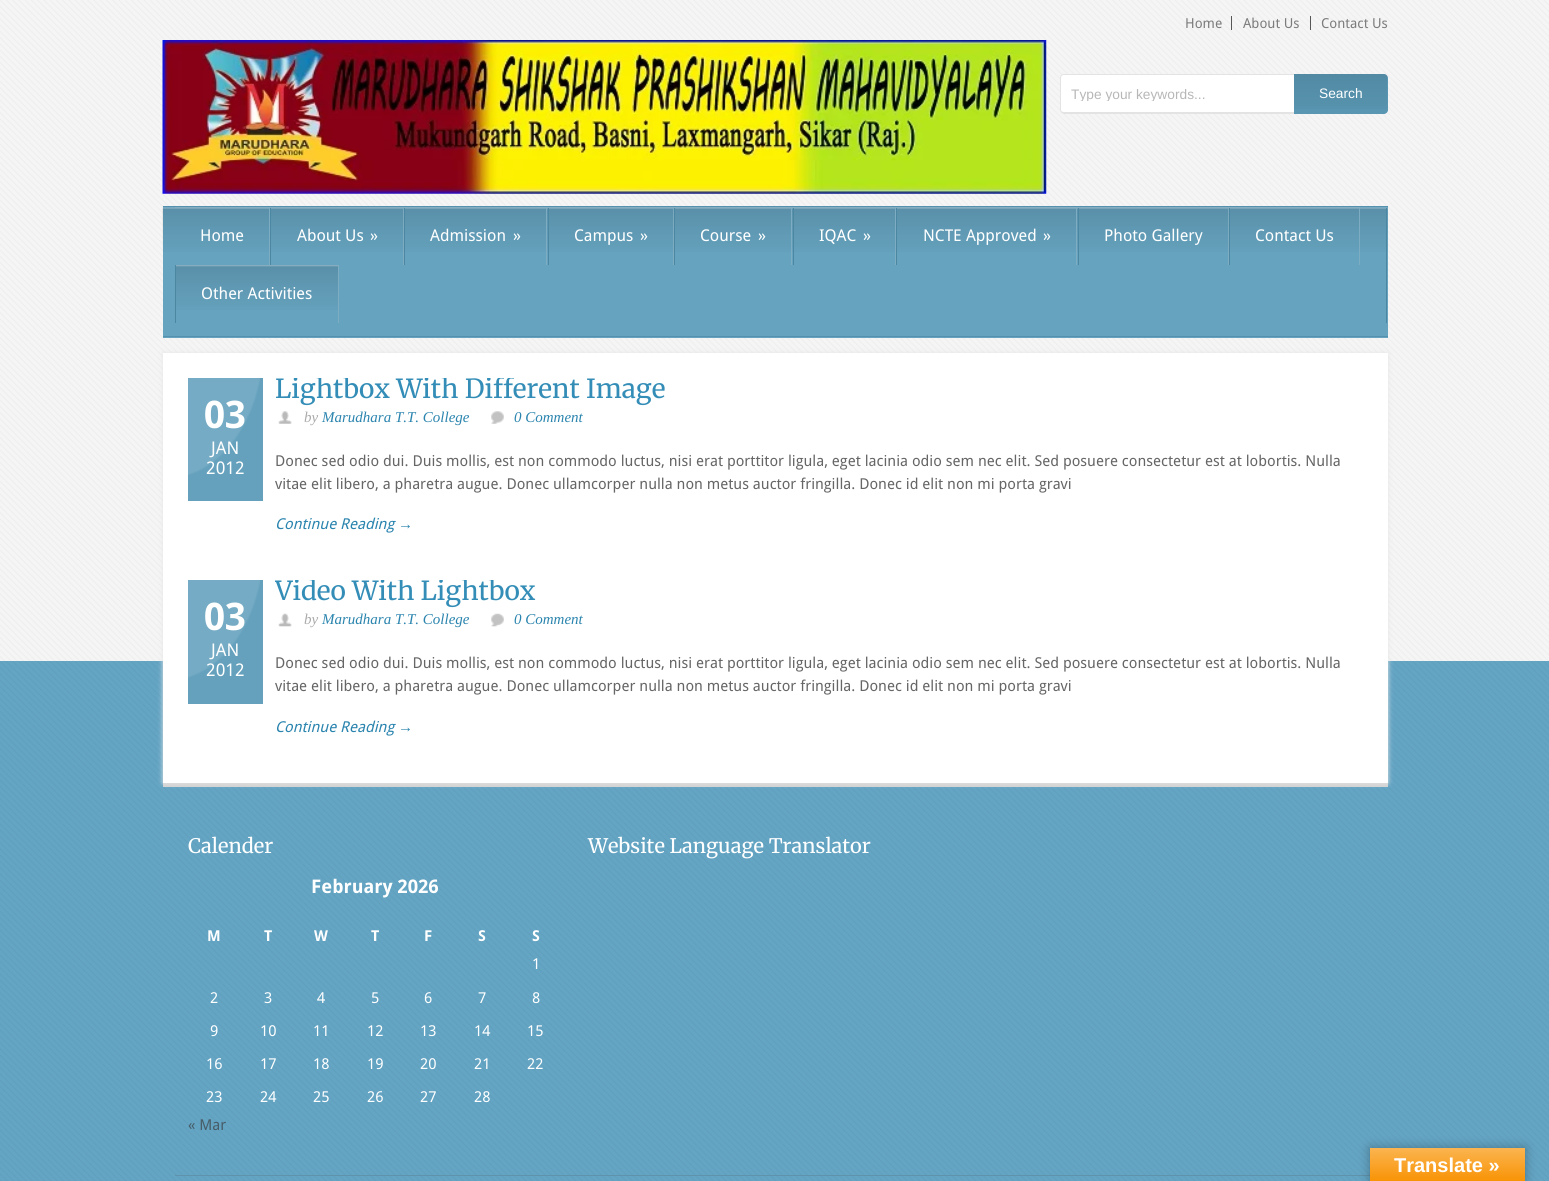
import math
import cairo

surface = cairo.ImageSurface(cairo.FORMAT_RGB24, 1549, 1181)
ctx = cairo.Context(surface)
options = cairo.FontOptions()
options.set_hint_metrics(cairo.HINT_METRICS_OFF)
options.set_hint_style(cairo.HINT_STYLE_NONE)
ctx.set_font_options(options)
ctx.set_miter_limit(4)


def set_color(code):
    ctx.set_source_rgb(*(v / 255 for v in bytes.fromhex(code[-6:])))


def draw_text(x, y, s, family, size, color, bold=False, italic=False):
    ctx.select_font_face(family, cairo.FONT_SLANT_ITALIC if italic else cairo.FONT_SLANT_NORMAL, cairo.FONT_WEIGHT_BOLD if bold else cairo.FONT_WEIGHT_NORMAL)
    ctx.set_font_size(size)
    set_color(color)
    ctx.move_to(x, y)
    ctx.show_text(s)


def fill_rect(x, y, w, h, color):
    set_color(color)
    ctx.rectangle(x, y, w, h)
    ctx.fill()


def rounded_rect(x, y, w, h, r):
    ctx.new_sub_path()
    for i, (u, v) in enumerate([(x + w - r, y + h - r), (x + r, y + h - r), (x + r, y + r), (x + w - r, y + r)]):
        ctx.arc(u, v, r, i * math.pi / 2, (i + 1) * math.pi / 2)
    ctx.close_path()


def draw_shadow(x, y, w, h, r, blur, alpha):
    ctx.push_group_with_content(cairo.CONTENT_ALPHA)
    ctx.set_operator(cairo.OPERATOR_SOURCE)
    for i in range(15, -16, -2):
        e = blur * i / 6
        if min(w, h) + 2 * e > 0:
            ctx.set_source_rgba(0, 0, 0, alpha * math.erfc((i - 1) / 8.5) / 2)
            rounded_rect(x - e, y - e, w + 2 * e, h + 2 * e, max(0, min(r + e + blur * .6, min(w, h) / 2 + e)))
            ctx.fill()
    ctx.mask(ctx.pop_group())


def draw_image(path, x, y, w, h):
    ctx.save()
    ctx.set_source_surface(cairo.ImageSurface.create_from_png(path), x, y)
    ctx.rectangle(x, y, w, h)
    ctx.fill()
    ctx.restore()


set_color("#f5f5f5")
ctx.paint()
draw_image("assets/img1.png", 0, 0, 1549, 661)
fill_rect(1231, 16, 1, 14, "#575757")
draw_text(1185, 28, "Home", "Droid Sans", 13.75, "#7c7c7c")
fill_rect(1310, 16, 1, 14, "#575757")
draw_text(1243, 28, "About Us", "Droid Sans", 13.75, "#7c7c7c")
draw_text(1321, 28, "Contact Us", "Droid Sans", 13.75, "#7c7c7c")
draw_image("assets/img2.png", 162, 40, 885, 154)
set_color("#ffffff")
ctx.new_path()
ctx.move_to(1064, 74)
ctx.line_to(1294, 74)
ctx.line_to(1294, 114)
ctx.line_to(1064, 114)
ctx.curve_to(1062, 114, 1060, 112, 1060, 110)
ctx.line_to(1060, 78)
ctx.curve_to(1060, 76, 1062, 74, 1064, 74)
ctx.close_path()
ctx.fill()
set_color("#e3e3e3")
ctx.set_fill_rule(cairo.FILL_RULE_EVEN_ODD)
ctx.new_path()
ctx.move_to(1064, 74)
ctx.line_to(1294, 74)
ctx.line_to(1294, 114)
ctx.line_to(1064, 114)
ctx.curve_to(1062, 114, 1060, 112, 1060, 110)
ctx.line_to(1060, 78)
ctx.curve_to(1060, 75, 1062, 74, 1064, 74)
ctx.close_path()
ctx.move_to(1064, 75)
ctx.line_to(1294, 75)
ctx.line_to(1294, 112)
ctx.line_to(1064, 112)
ctx.curve_to(1062, 112, 1061, 111, 1061, 110)
ctx.line_to(1061, 78)
ctx.curve_to(1061, 76, 1062, 75, 1064, 75)
ctx.close_path()
ctx.fill()
ctx.save()
ctx.set_fill_rule(cairo.FILL_RULE_WINDING)
ctx.rectangle(1071, 86, 213, 15)
ctx.clip()
draw_text(1071, 99, "Type your keywords...", "Liberation Sans", 13.75, "#b7b7b7")
ctx.restore()
set_color("#5996b2")
ctx.new_path()
ctx.move_to(1294, 74)
ctx.line_to(1384, 74)
ctx.curve_to(1386, 74, 1388, 76, 1388, 78)
ctx.line_to(1388, 110)
ctx.curve_to(1388, 112, 1386, 114, 1384, 114)
ctx.line_to(1294, 114)
ctx.close_path()
ctx.fill()
draw_image("assets/img3.png", 1294, 74, 93, 35)
draw_text(1319, 98, "Search", "Liberation Sans", 13.75, "#ffffff")
fill_rect(163, 207, 1225, 131, "#66a3bf")
draw_image("assets/img4.png", 162, 207, 1226, 45)
fill_rect(163, 206, 1225, 1, "#5391ae")
fill_rect(163, 336, 1225, 1, "#5391ae")
fill_rect(1386, 208, 1, 115, "#4c87a1")
fill_rect(175, 208, 94, 44, "#66a3bf")
draw_image("assets/img5.png", 175, 207, 95, 45)
fill_rect(269, 208, 1, 57, "#7eadc3")
draw_text(200, 241, "Home", "Droid Sans", 16.25, "#ffffff")
fill_rect(271, 208, 132, 44, "#66a3bf")
draw_image("assets/img6.png", 270, 207, 134, 45)
fill_rect(403, 208, 1, 57, "#7eadc3")
fill_rect(270, 208, 1, 57, "#4c87a1")
draw_text(297, 241, "About Us", "Droid Sans", 16.25, "#ffffff")
draw_text(370, 241, "»", "Droid Sans", 16.25, "#ffffff")
fill_rect(405, 208, 143, 44, "#66a3bf")
draw_image("assets/img7.png", 403, 207, 145, 45)
fill_rect(546, 208, 1, 57, "#7eadc3")
fill_rect(404, 208, 1, 57, "#4c87a1")
draw_text(430, 241, "Admission", "Droid Sans", 16.25, "#ffffff")
draw_text(513, 241, "»", "Droid Sans", 16.25, "#ffffff")
fill_rect(549, 208, 124, 44, "#66a3bf")
draw_image("assets/img8.png", 547, 207, 127, 45)
fill_rect(673, 208, 1, 57, "#7eadc3")
fill_rect(548, 208, 1, 57, "#4c87a1")
draw_text(574, 241, "Campus", "Droid Sans", 16.25, "#ffffff")
draw_text(640, 241, "»", "Droid Sans", 16.25, "#ffffff")
fill_rect(675, 208, 118, 44, "#66a3bf")
draw_image("assets/img9.png", 673, 207, 120, 45)
fill_rect(791, 208, 1, 57, "#7eadc3")
fill_rect(674, 208, 1, 57, "#4c87a1")
draw_text(700, 241, "Course", "Droid Sans", 16.25, "#ffffff")
draw_text(758, 241, "»", "Droid Sans", 16.25, "#ffffff")
fill_rect(794, 208, 101, 44, "#66a3bf")
draw_image("assets/img10.png", 792, 207, 105, 45)
fill_rect(895, 208, 1, 57, "#7eadc3")
fill_rect(793, 208, 1, 57, "#4c87a1")
draw_text(819, 241, "IQAC", "Droid Sans", 16.25, "#ffffff")
draw_text(863, 241, "»", "Droid Sans", 16.25, "#ffffff")
fill_rect(897, 208, 181, 44, "#66a3bf")
draw_image("assets/img11.png", 896, 207, 182, 45)
fill_rect(1076, 208, 1, 57, "#7eadc3")
fill_rect(896, 208, 1, 57, "#4c87a1")
draw_text(923, 241, "NCTE Approved", "Droid Sans", 16.25, "#ffffff")
draw_text(1043, 241, "»", "Droid Sans", 16.25, "#ffffff")
fill_rect(1079, 208, 149, 44, "#66a3bf")
draw_image("assets/img12.png", 1077, 207, 152, 45)
fill_rect(1228, 208, 1, 57, "#7eadc3")
fill_rect(1078, 208, 1, 57, "#4c87a1")
draw_text(1104, 241, "Photo Gallery", "Droid Sans", 16.25, "#ffffff")
fill_rect(1230, 208, 129, 44, "#66a3bf")
draw_image("assets/img13.png", 1228, 207, 132, 45)
fill_rect(1359, 208, 1, 57, "#7eadc3")
fill_rect(1229, 208, 1, 57, "#4c87a1")
draw_text(1255, 241, "Contact Us", "Droid Sans", 16.25, "#ffffff")
draw_image("assets/img14.png", 176, 265, 162, 45)
fill_rect(338, 265, 1, 58, "#7eadc3")
fill_rect(175, 265, 1, 58, "#4c87a1")
draw_text(201, 299, "Other Activities", "Droid Sans", 16.25, "#ffffff")
fill_rect(0, 661, 1549, 520, "#64a5c4")
draw_image("assets/img21.png", 0, 661, 1549, 520)
fill_rect(163, 783, 1225, 4, "#d2d2d2")
set_color("#e5e5e5")
draw_shadow(163, 353, 1225, 430, 0, 2.5, 1)
fill_rect(163, 353, 1225, 430, "#ffffff")
fill_rect(188, 378, 75, 123, "#65a1bd")
draw_image("assets/img15.png", 188, 378, 72, 97)
draw_text(204, 428, "03", "Droid Sans", 38, "#ffffff", bold=True)
draw_text(211, 454, "JAN", "Droid Sans", 17.5, "#ffffff")
draw_text(206, 474, "2012", "Droid Sans", 17.5, "#ffffff")
ctx.save()
ctx.set_fill_rule(cairo.FILL_RULE_WINDING)
ctx.rectangle(275, 378, 1088, 158)
ctx.clip()
draw_text(275, 398, "Lightbox With Different Image", "Merriweather", 26.25, "#338db7")
ctx.restore()
draw_image("assets/img16.png", 278, 411, 14, 13)
draw_text(304, 422, "by", "Liberation Serif", 15, "#aaaaaa", italic=True)
draw_text(322, 422, "Marudhara T.T. College", "Liberation Serif", 15, "#2a84ae", italic=True)
draw_image("assets/img17.png", 491, 411, 13, 13)
draw_text(514, 422, "0 Comment", "Liberation Serif", 15, "#2a84ae", italic=True)
draw_text(275, 466, "Donec sed odio dui. Duis mollis, est non commodo luctus, nisi erat porttitor ligula, eget lacinia odio sem nec elit. Sed posuere consectetur est at lobortis. Nulla", "Droid Sans", 15, "#666666")
draw_text(275, 489, "vitae elit libero, a pharetra augue. Donec ullamcorper nulla non metus auctor fringilla. Donec id elit non mi porta gravi", "Droid Sans", 15, "#666666")
draw_text(275, 529, "Continue Reading", "Droid Sans", 15, "#2a84ae", italic=True)
draw_text(398, 529, "→", "Liberation Serif", 15, "#2a84ae", italic=True)
fill_rect(188, 580, 75, 124, "#65a1bd")
draw_image("assets/img18.png", 188, 580, 72, 98)
draw_text(204, 630, "03", "Droid Sans", 38, "#ffffff", bold=True)
draw_text(211, 656, "JAN", "Droid Sans", 17.5, "#ffffff")
draw_text(206, 676, "2012", "Droid Sans", 17.5, "#ffffff")
ctx.save()
ctx.set_fill_rule(cairo.FILL_RULE_WINDING)
ctx.rectangle(275, 580, 1088, 159)
ctx.clip()
draw_text(275, 600, "Video With Lightbox", "Merriweather", 26.25, "#338db7")
ctx.restore()
draw_image("assets/img19.png", 278, 613, 14, 14)
draw_text(304, 624, "by", "Liberation Serif", 15, "#aaaaaa", italic=True)
draw_text(322, 624, "Marudhara T.T. College", "Liberation Serif", 15, "#2a84ae", italic=True)
draw_image("assets/img20.png", 491, 613, 13, 14)
draw_text(514, 624, "0 Comment", "Liberation Serif", 15, "#2a84ae", italic=True)
draw_text(275, 668, "Donec sed odio dui. Duis mollis, est non commodo luctus, nisi erat porttitor ligula, eget lacinia odio sem nec elit. Sed posuere consectetur est at lobortis. Nulla", "Droid Sans", 15, "#666666")
draw_text(275, 691, "vitae elit libero, a pharetra augue. Donec ullamcorper nulla non metus auctor fringilla. Donec id elit non mi porta gravi", "Droid Sans", 15, "#666666")
draw_text(275, 732, "Continue Reading", "Droid Sans", 15, "#2a84ae", italic=True)
draw_text(398, 732, "→", "Liberation Serif", 15, "#2a84ae", italic=True)
draw_text(188, 853, "Calender", "Merriweather", 20, "#ffffff")
draw_text(311, 893, "February 2026", "Droid Sans", 18.75, "#ffffff", bold=True)
draw_text(207, 941, "M", "Droid Sans", 15, "#ffffff", bold=True)
draw_text(264, 941, "T", "Droid Sans", 15, "#ffffff", bold=True)
draw_text(314, 941, "W", "Droid Sans", 15, "#ffffff", bold=True)
draw_text(371, 941, "T", "Droid Sans", 15, "#ffffff", bold=True)
draw_text(424, 941, "F", "Droid Sans", 15, "#ffffff", bold=True)
draw_text(478, 941, "S", "Droid Sans", 15, "#ffffff", bold=True)
draw_text(532, 941, "S", "Droid Sans", 15, "#ffffff", bold=True)
draw_text(532, 969, "1", "Droid Sans", 15, "#ffffff")
draw_text(210, 1003, "2", "Droid Sans", 15, "#ffffff")
draw_text(264, 1003, "3", "Droid Sans", 15, "#ffffff")
draw_text(317, 1003, "4", "Droid Sans", 15, "#ffffff")
draw_text(371, 1003, "5", "Droid Sans", 15, "#ffffff")
draw_text(424, 1003, "6", "Droid Sans", 15, "#ffffff")
draw_text(478, 1003, "7", "Droid Sans", 15, "#ffffff")
draw_text(532, 1003, "8", "Droid Sans", 15, "#ffffff")
draw_text(210, 1036, "9", "Droid Sans", 15, "#ffffff")
draw_text(260, 1036, "10", "Droid Sans", 15, "#ffffff")
draw_text(313, 1036, "11", "Droid Sans", 15, "#ffffff")
draw_text(367, 1036, "12", "Droid Sans", 15, "#ffffff")
draw_text(420, 1036, "13", "Droid Sans", 15, "#ffffff")
draw_text(474, 1036, "14", "Droid Sans", 15, "#ffffff")
draw_text(527, 1036, "15", "Droid Sans", 15, "#ffffff")
draw_text(206, 1069, "16", "Droid Sans", 15, "#ffffff")
draw_text(260, 1069, "17", "Droid Sans", 15, "#ffffff")
draw_text(313, 1069, "18", "Droid Sans", 15, "#ffffff")
draw_text(367, 1069, "19", "Droid Sans", 15, "#ffffff")
draw_text(420, 1069, "20", "Droid Sans", 15, "#ffffff")
draw_text(474, 1069, "21", "Droid Sans", 15, "#ffffff")
draw_text(527, 1069, "22", "Droid Sans", 15, "#ffffff")
draw_text(206, 1102, "23", "Droid Sans", 15, "#ffffff")
draw_text(260, 1102, "24", "Droid Sans", 15, "#ffffff")
draw_text(313, 1102, "25", "Droid Sans", 15, "#ffffff")
draw_text(367, 1102, "26", "Droid Sans", 15, "#ffffff")
draw_text(420, 1102, "27", "Droid Sans", 15, "#ffffff")
draw_text(474, 1102, "28", "Droid Sans", 15, "#ffffff")
draw_text(188, 1130, "« Mar", "Droid Sans", 15, "#475d68")
draw_text(588, 853, "Website Language Translator", "Merriweather", 20, "#ffffff")
fill_rect(175, 1175, 1200, 1, "#5f92ab")
set_color("#000000")
draw_shadow(1370, 1148, 155, 33, 0, 5.5, 0.3)
gradient = cairo.LinearGradient(1448, 1148, 1448, 1181)
gradient.add_color_stop_rgba(0, 0.984, 0.706, 0.314, 1)
gradient.add_color_stop_rgba(1, 0.973, 0.58, 0.024, 1)
ctx.set_source(gradient)
ctx.rectangle(1370, 1148, 155, 33)
ctx.fill()
draw_text(1394, 1172, "Translate »", "Liberation Sans", 20, "#ffffff", bold=True)
surface.write_to_png("output.png")
